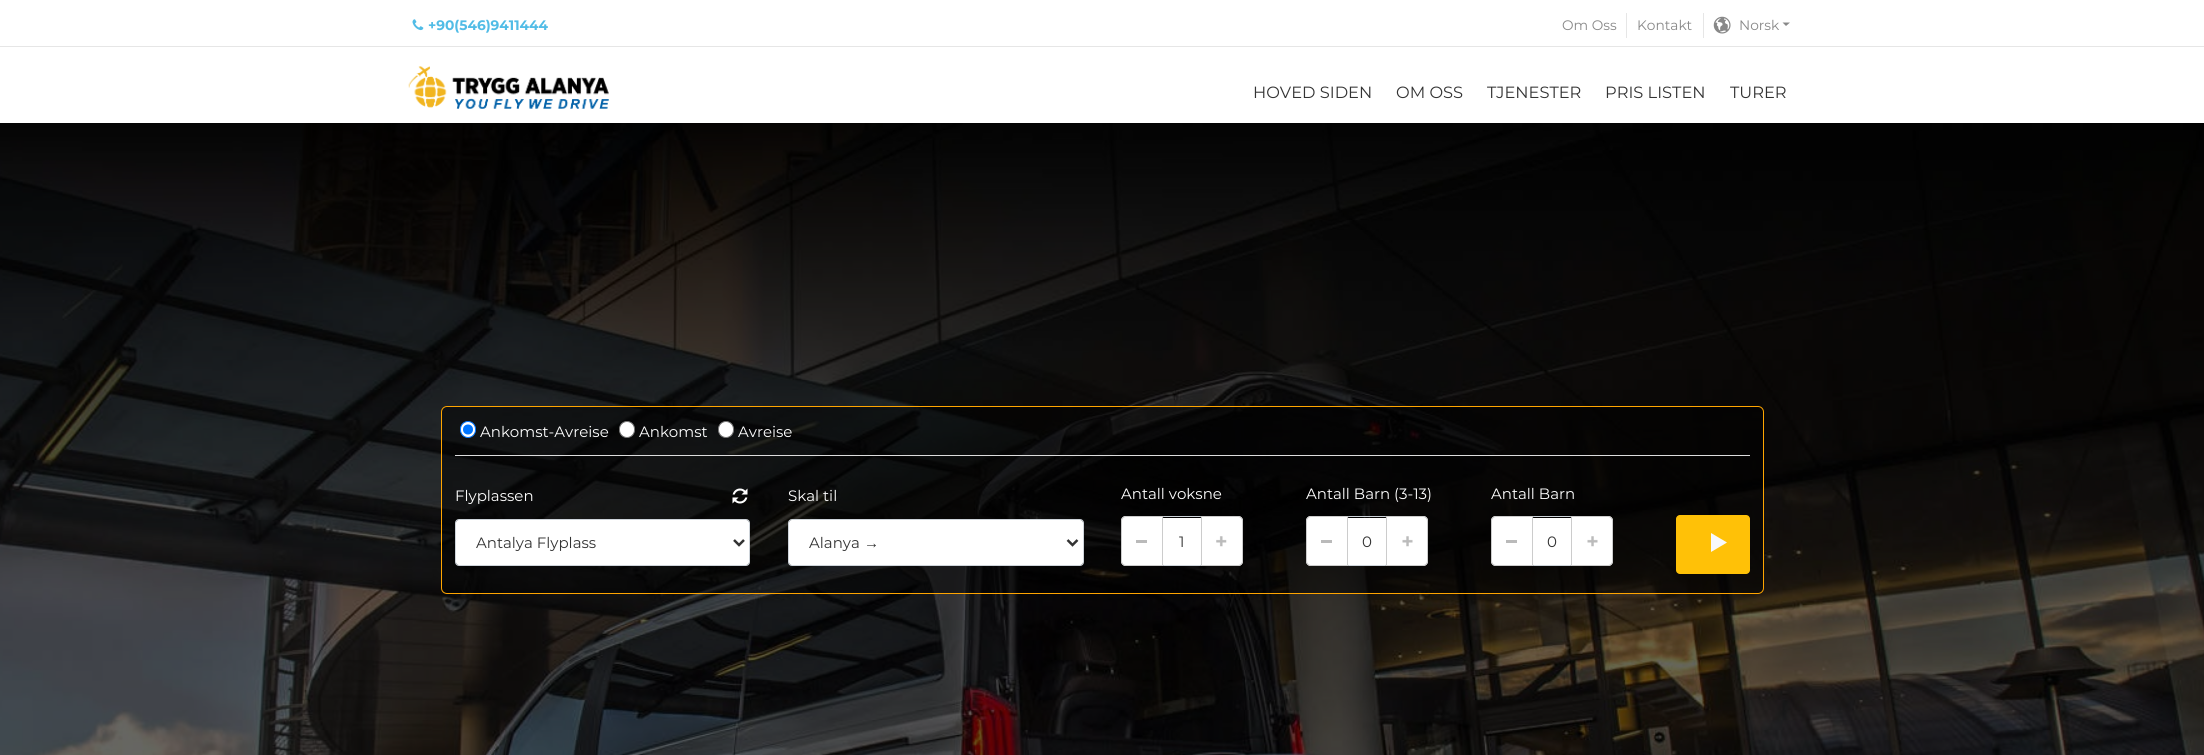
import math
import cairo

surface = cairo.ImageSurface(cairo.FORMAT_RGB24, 2204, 755)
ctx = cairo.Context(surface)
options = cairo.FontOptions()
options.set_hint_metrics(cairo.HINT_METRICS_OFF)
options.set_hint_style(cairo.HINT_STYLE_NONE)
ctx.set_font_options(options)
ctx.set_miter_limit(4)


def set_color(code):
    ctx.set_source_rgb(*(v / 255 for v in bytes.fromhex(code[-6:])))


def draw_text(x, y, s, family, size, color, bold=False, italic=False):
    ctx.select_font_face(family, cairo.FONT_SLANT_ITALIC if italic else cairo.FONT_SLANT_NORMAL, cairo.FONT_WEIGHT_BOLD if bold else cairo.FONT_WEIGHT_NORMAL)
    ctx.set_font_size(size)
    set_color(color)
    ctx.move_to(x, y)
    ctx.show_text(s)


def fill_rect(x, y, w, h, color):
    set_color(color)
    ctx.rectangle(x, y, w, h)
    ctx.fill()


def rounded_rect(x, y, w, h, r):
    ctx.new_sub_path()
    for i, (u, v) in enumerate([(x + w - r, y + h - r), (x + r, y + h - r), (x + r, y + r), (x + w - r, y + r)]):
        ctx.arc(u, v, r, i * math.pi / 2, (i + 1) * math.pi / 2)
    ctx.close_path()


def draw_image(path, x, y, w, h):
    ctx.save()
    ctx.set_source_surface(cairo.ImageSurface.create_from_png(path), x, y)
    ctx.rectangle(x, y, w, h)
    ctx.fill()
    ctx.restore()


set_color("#ffffff")
ctx.paint()
fill_rect(0, 46, 2204, 1, "#e6e6e6")
draw_image("assets/img1.png", 412, 19, 12, 12)
draw_text(428, 30, "+90(546)9411444", "Montserrat", 13.75, "#51bce6", bold=True)
draw_text(1562, 30, "Om Oss", "Montserrat", 13.75, "#888888")
fill_rect(1626, 13, 1, 25, "#e6e6e6")
draw_text(1637, 30, "Kontakt", "Montserrat", 13.75, "#888888")
fill_rect(1703, 13, 1, 25, "#e6e6e6")
draw_image("assets/img2.png", 1713, 16, 18, 18)
draw_text(1739, 30, "Norsk", "Montserrat", 13.75, "#888888")
ctx.new_path()
ctx.move_to(1782.5, 22.5)
ctx.line_to(1790, 22.5)
ctx.line_to(1786, 26)
ctx.close_path()
ctx.fill()
draw_image("assets/img3.png", 408, 66, 201, 43)
draw_text(1253, 98, "HOVED SIDEN", "Montserrat", 16.25, "#333333")
draw_text(1396, 98, "OM OSS", "Montserrat", 16.25, "#333333")
draw_text(1487, 98, "TJENESTER", "Montserrat", 16.25, "#333333")
draw_text(1605, 98, "PRIS LISTEN", "Montserrat", 16.25, "#333333")
draw_text(1730, 98, "TURER", "Montserrat", 16.25, "#333333")
draw_image("assets/img4.png", 0, 123, 2204, 632)
ctx.set_source_rgba(0, 0, 0, 0.5)
rounded_rect(441.5, 406.5, 1322, 187, 5.5)
ctx.fill_preserve()
set_color("#ffa500")
ctx.set_line_width(1)
ctx.stroke()
set_color("#ffffff")
rounded_rect(460.5, 421.5, 15, 16, 7.5)
ctx.fill_preserve()
set_color("#0075ff")
ctx.stroke()
ctx.arc(468, 429.5, 5, 0, 2 * math.pi)
ctx.fill()
draw_text(480, 437, "Ankomst-Avreise", "Montserrat", 15, "#ffffff")
rounded_rect(619.5, 421.5, 15, 16, 7.5)
ctx.fill_preserve()
set_color("#767676")
ctx.stroke()
draw_text(639, 437, "Ankomst", "Montserrat", 15, "#ffffff")
rounded_rect(718.5, 421.5, 15, 16, 7.5)
ctx.fill_preserve()
set_color("#767676")
ctx.stroke()
draw_text(738, 437, "Avreise", "Montserrat", 15, "#ffffff")
fill_rect(455, 455, 1295, 1, "#dddddd")
draw_text(455, 501, "Flyplassen", "Montserrat", 15, "#ffffff")
draw_image("assets/img5.png", 732, 488, 16, 16)
rounded_rect(456, 520, 293, 45, 2.5)
ctx.fill()
rounded_rect(455.5, 519.5, 294, 46, 3.5)
set_color("#ced4da")
ctx.stroke()
ctx.new_path()
ctx.move_to(734, 540)
ctx.line_to(739, 545)
ctx.line_to(744, 540)
set_color("#333333")
ctx.set_line_width(2.5)
ctx.stroke()
draw_text(476, 548, "Antalya Flyplass", "Montserrat", 15, "#333333")
draw_text(788, 501, "Skal til", "Montserrat", 15, "#ffffff")
rounded_rect(789, 520, 294, 45, 2.5)
ctx.fill()
rounded_rect(788.5, 519.5, 295, 46, 3.5)
set_color("#ced4da")
ctx.set_line_width(1)
ctx.stroke()
ctx.new_path()
ctx.move_to(1067.5, 540)
ctx.line_to(1072.5, 545)
ctx.line_to(1077.5, 540)
set_color("#333333")
ctx.set_line_width(2.5)
ctx.stroke()
draw_text(809, 548, "Alanya", "Montserrat", 15, "#333333")
draw_text(864, 548, "→", "Liberation Sans", 15, "#333333")
draw_text(1121, 499, "Antall voksne", "Montserrat", 15, "#ffffff")
fill_rect(1163, 518, 38, 47, "#ffffff")
rounded_rect(1160.5, 516.5, 43, 49, 3.5)
set_color("#ced4da")
ctx.set_line_width(1)
ctx.stroke()
set_color("#ffffff")
ctx.new_path()
ctx.move_to(1126, 516)
ctx.line_to(1163, 516)
ctx.line_to(1163, 566)
ctx.line_to(1126, 566)
ctx.curve_to(1123, 566, 1121, 564, 1121, 561)
ctx.line_to(1121, 521)
ctx.curve_to(1121, 518, 1123, 516, 1126, 516)
ctx.close_path()
ctx.fill()
fill_rect(1136, 540, 11, 3, "#bababa")
ctx.new_path()
ctx.move_to(1126, 516.5)
ctx.line_to(1162.5, 516.5)
ctx.line_to(1162.5, 565.5)
ctx.line_to(1126, 565.5)
ctx.curve_to(1123.5, 565.5, 1121.5, 563.5, 1121.5, 561)
ctx.line_to(1121.5, 521)
ctx.curve_to(1121.5, 518.5, 1123.5, 516.5, 1126, 516.5)
ctx.close_path()
set_color("#cccccc")
ctx.stroke()
draw_text(1179, 547, "1", "Montserrat", 15, "#333333")
set_color("#ffffff")
ctx.new_path()
ctx.move_to(1201, 516)
ctx.line_to(1238, 516)
ctx.curve_to(1241, 516, 1243, 518, 1243, 521)
ctx.line_to(1243, 561)
ctx.curve_to(1243, 564, 1241, 566, 1238, 566)
ctx.line_to(1201, 566)
ctx.close_path()
ctx.fill()
draw_image("assets/img6.png", 1216, 536, 11, 11)
ctx.new_path()
ctx.move_to(1201.5, 516.5)
ctx.line_to(1238, 516.5)
ctx.curve_to(1240.5, 516.5, 1242.5, 518.5, 1242.5, 521)
ctx.line_to(1242.5, 561)
ctx.curve_to(1242.5, 563.5, 1240.5, 565.5, 1238, 565.5)
ctx.line_to(1201.5, 565.5)
ctx.close_path()
set_color("#cccccc")
ctx.stroke()
draw_text(1306, 499, "Antall Barn (3-13)", "Montserrat", 15, "#ffffff")
fill_rect(1348, 518, 38, 47, "#ffffff")
rounded_rect(1345.5, 516.5, 43, 49, 3.5)
set_color("#ced4da")
ctx.stroke()
set_color("#ffffff")
ctx.new_path()
ctx.move_to(1311, 516)
ctx.line_to(1348, 516)
ctx.line_to(1348, 566)
ctx.line_to(1311, 566)
ctx.curve_to(1308, 566, 1306, 564, 1306, 561)
ctx.line_to(1306, 521)
ctx.curve_to(1306, 518, 1308, 516, 1311, 516)
ctx.close_path()
ctx.fill()
fill_rect(1321, 540, 11, 3, "#bababa")
ctx.new_path()
ctx.move_to(1311, 516.5)
ctx.line_to(1347.5, 516.5)
ctx.line_to(1347.5, 565.5)
ctx.line_to(1311, 565.5)
ctx.curve_to(1308.5, 565.5, 1306.5, 563.5, 1306.5, 561)
ctx.line_to(1306.5, 521)
ctx.curve_to(1306.5, 518.5, 1308.5, 516.5, 1311, 516.5)
ctx.close_path()
set_color("#cccccc")
ctx.stroke()
draw_text(1362, 547, "0", "Montserrat", 15, "#333333")
set_color("#ffffff")
ctx.new_path()
ctx.move_to(1386, 516)
ctx.line_to(1423, 516)
ctx.curve_to(1426, 516, 1428, 518, 1428, 521)
ctx.line_to(1428, 561)
ctx.curve_to(1428, 564, 1426, 566, 1423, 566)
ctx.line_to(1386, 566)
ctx.close_path()
ctx.fill()
draw_image("assets/img7.png", 1402, 536, 11, 11)
ctx.new_path()
ctx.move_to(1386.5, 516.5)
ctx.line_to(1423, 516.5)
ctx.curve_to(1425.5, 516.5, 1427.5, 518.5, 1427.5, 521)
ctx.line_to(1427.5, 561)
ctx.curve_to(1427.5, 563.5, 1425.5, 565.5, 1423, 565.5)
ctx.line_to(1386.5, 565.5)
ctx.close_path()
set_color("#cccccc")
ctx.stroke()
draw_text(1491, 499, "Antall Barn", "Montserrat", 15, "#ffffff")
fill_rect(1533, 518, 38, 47, "#ffffff")
rounded_rect(1530.5, 516.5, 43, 49, 3.5)
set_color("#ced4da")
ctx.stroke()
set_color("#ffffff")
ctx.new_path()
ctx.move_to(1496, 516)
ctx.line_to(1533, 516)
ctx.line_to(1533, 566)
ctx.line_to(1496, 566)
ctx.curve_to(1493, 566, 1491, 564, 1491, 561)
ctx.line_to(1491, 521)
ctx.curve_to(1491, 518, 1493, 516, 1496, 516)
ctx.close_path()
ctx.fill()
fill_rect(1506, 540, 11, 3, "#bababa")
ctx.new_path()
ctx.move_to(1496, 516.5)
ctx.line_to(1532.5, 516.5)
ctx.line_to(1532.5, 565.5)
ctx.line_to(1496, 565.5)
ctx.curve_to(1493.5, 565.5, 1491.5, 563.5, 1491.5, 561)
ctx.line_to(1491.5, 521)
ctx.curve_to(1491.5, 518.5, 1493.5, 516.5, 1496, 516.5)
ctx.close_path()
set_color("#cccccc")
ctx.stroke()
draw_text(1547, 547, "0", "Montserrat", 15, "#333333")
set_color("#ffffff")
ctx.new_path()
ctx.move_to(1571, 516)
ctx.line_to(1608, 516)
ctx.curve_to(1611, 516, 1613, 518, 1613, 521)
ctx.line_to(1613, 561)
ctx.curve_to(1613, 564, 1611, 566, 1608, 566)
ctx.line_to(1571, 566)
ctx.close_path()
ctx.fill()
draw_image("assets/img7.png", 1587, 536, 11, 11)
ctx.new_path()
ctx.move_to(1571.5, 516.5)
ctx.line_to(1608, 516.5)
ctx.curve_to(1610.5, 516.5, 1612.5, 518.5, 1612.5, 521)
ctx.line_to(1612.5, 561)
ctx.curve_to(1612.5, 563.5, 1610.5, 565.5, 1608, 565.5)
ctx.line_to(1571.5, 565.5)
ctx.close_path()
set_color("#cccccc")
ctx.stroke()
set_color("#ffc107")
rounded_rect(1676, 515, 74, 59, 4)
ctx.fill()
set_color("#f8f9fa")
ctx.new_path()
ctx.move_to(1711, 552)
ctx.line_to(1711, 533)
ctx.line_to(1727, 542.5)
ctx.close_path()
ctx.fill()
surface.write_to_png("output.png")
